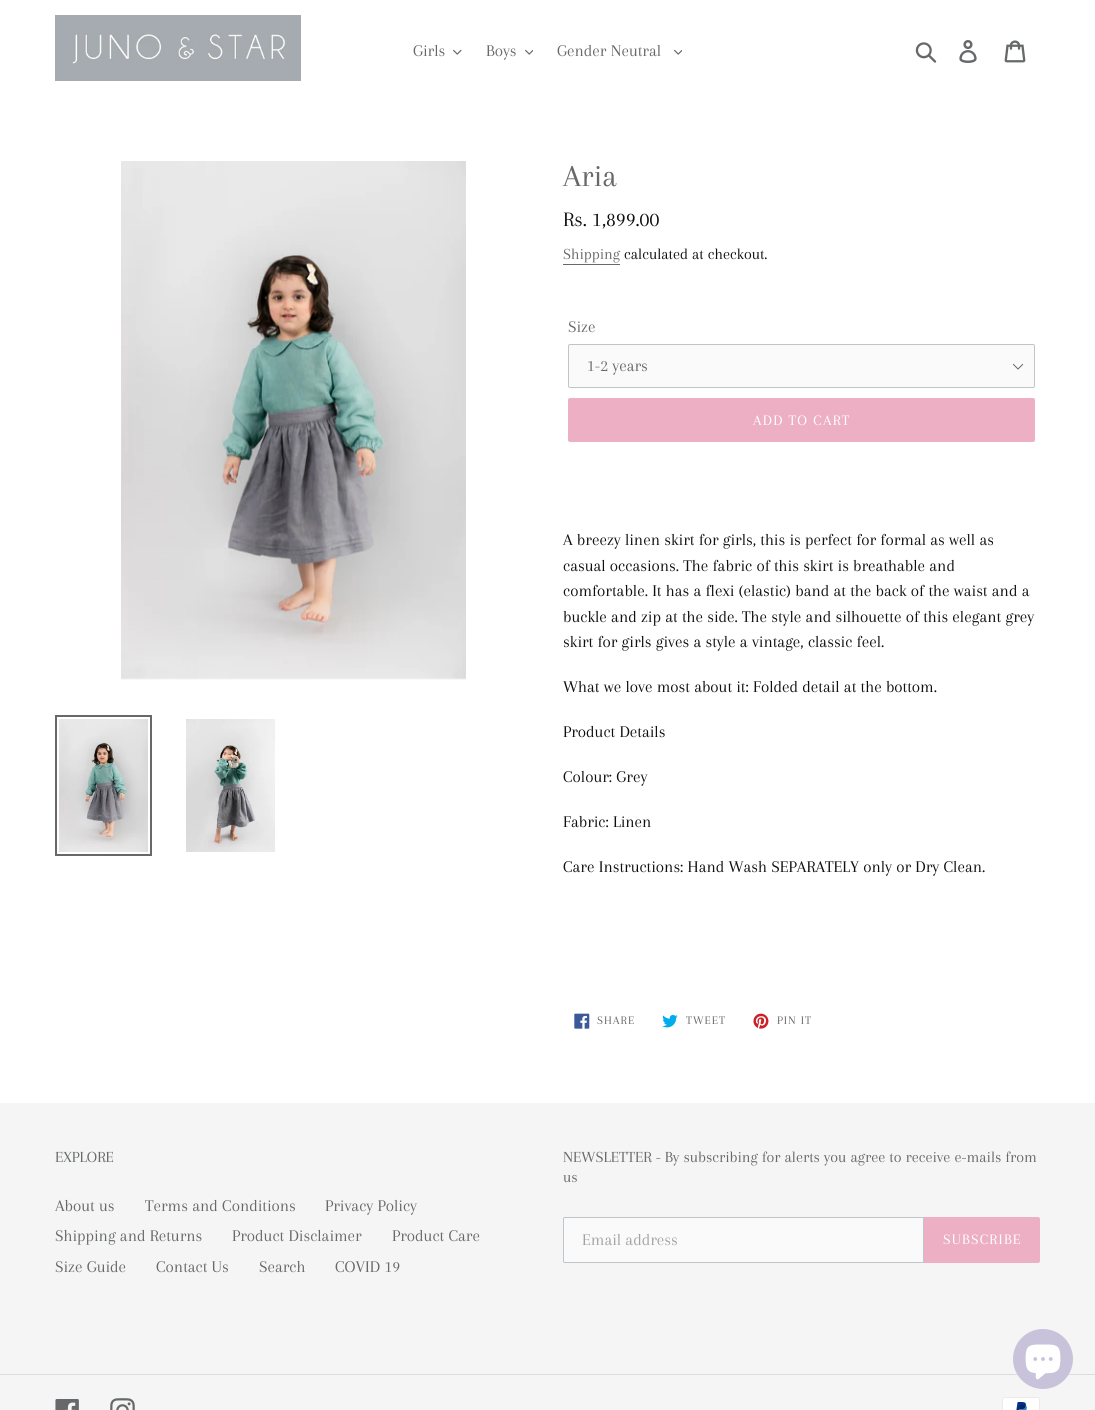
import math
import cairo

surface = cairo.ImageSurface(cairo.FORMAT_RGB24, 1095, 1410)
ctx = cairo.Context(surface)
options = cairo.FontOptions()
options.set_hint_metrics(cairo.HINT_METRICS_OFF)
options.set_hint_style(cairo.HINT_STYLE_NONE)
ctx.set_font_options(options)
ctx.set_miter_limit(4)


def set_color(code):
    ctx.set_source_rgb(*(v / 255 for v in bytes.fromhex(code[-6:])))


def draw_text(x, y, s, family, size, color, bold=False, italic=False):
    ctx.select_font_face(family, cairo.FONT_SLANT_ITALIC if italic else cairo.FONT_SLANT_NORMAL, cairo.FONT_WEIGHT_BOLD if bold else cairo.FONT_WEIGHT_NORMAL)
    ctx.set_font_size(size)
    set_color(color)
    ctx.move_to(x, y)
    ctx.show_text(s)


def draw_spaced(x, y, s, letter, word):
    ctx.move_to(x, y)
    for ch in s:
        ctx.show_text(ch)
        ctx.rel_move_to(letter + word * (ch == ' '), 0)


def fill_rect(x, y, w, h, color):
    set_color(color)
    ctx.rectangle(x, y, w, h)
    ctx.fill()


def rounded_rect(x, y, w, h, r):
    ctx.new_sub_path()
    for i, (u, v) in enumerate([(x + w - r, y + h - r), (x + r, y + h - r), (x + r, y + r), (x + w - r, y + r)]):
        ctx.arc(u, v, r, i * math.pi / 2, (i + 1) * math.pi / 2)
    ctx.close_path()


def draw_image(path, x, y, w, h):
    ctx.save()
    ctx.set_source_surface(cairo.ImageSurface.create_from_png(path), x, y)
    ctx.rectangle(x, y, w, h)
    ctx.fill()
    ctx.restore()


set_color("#ffffff")
ctx.paint()
draw_image("assets/img1.png", 55, 15, 246, 66)
draw_text(413, 56, "Girls", "Arapey", 17, "#66686a")
draw_image("assets/img2.png", 453, 49, 9, 6)
draw_text(486, 56, "Boys", "Arapey", 17, "#66686a")
draw_image("assets/img3.png", 525, 49, 8, 6)
draw_text(557, 56, "Gender Neutral", "Arapey", 17, "#66686a")
draw_image("assets/img3.png", 674, 49, 8, 6)
draw_image("assets/img4.png", 915, 42, 22, 21)
draw_image("assets/img5.png", 959, 40, 18, 23)
draw_image("assets/img6.png", 1004, 40, 22, 23)
draw_image("assets/img7.png", 121, 161, 345, 519)
ctx.rectangle(56, 716, 95, 139)
ctx.stroke()
draw_image("assets/img8.png", 59, 719, 89, 133)
draw_image("assets/img9.png", 186, 719, 89, 133)
draw_text(563, 186, "Aria", "Arapey", 32, "#66686a")
draw_text(563, 226, "Rs. 1,899.00", "Arapey", 21.25, "#0e0f10")
draw_text(563, 259, "Shipping", "Arapey", 16, "#66686a")
fill_rect(563, 264, 57, 1, "#66686a")
draw_text(624, 259, "calculated at checkout.", "Arapey", 16, "#0e0f10")
draw_text(568, 332, "Size", "Arapey", 17, "#66686a")
set_color("#fafafa")
rounded_rect(568, 344, 467, 44, 2)
ctx.fill()
draw_image("assets/img10.png", 1012, 363, 12, 7)
rounded_rect(568.5, 344.5, 466, 43, 1.5)
set_color("#bec5cb")
ctx.set_line_width(1)
ctx.stroke()
draw_text(587, 371, "1-2 years", "Arapey", 17, "#66686a")
set_color("#ecafc4")
rounded_rect(568, 398, 467, 44, 2)
ctx.fill()
ctx.set_font_size(15)
set_color("#ffffff")
draw_spaced(753, 425, "ADD TO CART", 1.25, 0)
draw_text(563, 545, "A breezy linen skirt for girls, this is perfect for formal as well as", "Arapey", 17, "#0e0f10")
draw_text(563, 571, "casual occasions. The fabric of this skirt is breathable and", "Arapey", 17, "#0e0f10")
draw_text(563, 596, "comfortable. It has a flexi (elastic) band at the back of the waist and a", "Arapey", 17, "#0e0f10")
draw_text(563, 622, "buckle and zip at the side. The style and silhouette of this elegant grey", "Arapey", 17, "#0e0f10")
draw_text(563, 647, "skirt for girls gives a style a vintage, classic feel.", "Arapey", 17, "#0e0f10")
draw_text(563, 692, "What we love most about it: Folded detail at the bottom.", "Arapey", 17, "#0e0f10")
draw_text(563, 737, "Product Details", "Arapey", 17, "#0e0f10")
draw_text(563, 782, "Colour: Grey", "Arapey", 17, "#0e0f10")
draw_text(563, 827, "Fabric: Linen", "Arapey", 17, "#0e0f10")
draw_text(563, 872, "Care Instructions: Hand Wash SEPARATELY only or Dry Clean.", "Arapey", 17, "#0e0f10")
draw_image("assets/img11.png", 574, 1013, 16, 16)
ctx.set_font_size(12)
set_color("#66686a")
draw_spaced(597, 1024, "SHARE", 1, 0)
draw_image("assets/img12.png", 662, 1014, 16, 14)
draw_spaced(686, 1024, "TWEET", 1, 0)
draw_image("assets/img13.png", 753, 1013, 16, 16)
draw_spaced(777, 1024, "PIN IT", 1, 0)
fill_rect(0, 1103, 1095, 307, "#f5f5f5")
draw_text(55, 1162, "EXPLORE", "Arapey", 16, "#66686a")
draw_text(55, 1211, "About us", "Arapey", 17, "#66686a")
draw_text(145, 1211, "Terms and Conditions", "Arapey", 17, "#66686a")
draw_text(325, 1211, "Privacy Policy", "Arapey", 17, "#66686a")
draw_text(55, 1241, "Shipping and Returns", "Arapey", 17, "#66686a")
draw_text(232, 1241, "Product Disclaimer", "Arapey", 17, "#66686a")
draw_text(392, 1241, "Product Care", "Arapey", 17, "#66686a")
draw_text(55, 1272, "Size Guide", "Arapey", 17, "#66686a")
draw_text(156, 1272, "Contact Us", "Arapey", 17, "#66686a")
draw_text(259, 1272, "Search", "Arapey", 17, "#66686a")
draw_text(335, 1272, "COVID 19", "Arapey", 17, "#66686a")
draw_text(563, 1162, "NEWSLETTER - By subscribing for alerts you agree to receive e-mails from", "Arapey", 16, "#66686a")
draw_text(563, 1182, "us", "Arapey", 16, "#66686a")
set_color("#fafafa")
ctx.new_path()
ctx.move_to(565, 1217.5)
ctx.line_to(923.5, 1217.5)
ctx.line_to(923.5, 1262.5)
ctx.line_to(565, 1262.5)
ctx.curve_to(564, 1262.5, 563.5, 1262, 563.5, 1261)
ctx.line_to(563.5, 1219)
ctx.curve_to(563.5, 1218, 564, 1217.5, 565, 1217.5)
ctx.close_path()
ctx.fill_preserve()
set_color("#bec5cb")
ctx.stroke()
draw_text(582, 1245, "Email address", "Arapey", 17, "#a1a2a4")
set_color("#ecafc4")
ctx.new_path()
ctx.move_to(924, 1217)
ctx.line_to(1038, 1217)
ctx.curve_to(1039, 1217, 1040, 1218, 1040, 1219)
ctx.line_to(1040, 1261)
ctx.curve_to(1040, 1262, 1039, 1263, 1038, 1263)
ctx.line_to(924, 1263)
ctx.close_path()
ctx.fill()
ctx.set_font_size(15)
set_color("#ffffff")
draw_spaced(943, 1244, "SUBSCRIBE", 1.25, 0)
fill_rect(0, 1374, 1095, 1, "#dcdcdc")
draw_image("assets/img14.png", 55, 1399, 24, 11)
draw_image("assets/img15.png", 110, 1398, 25, 12)
draw_image("assets/img16.png", 1002, 1397, 38, 13)
set_color("#c8c3da")
ctx.arc(1043, 1359, 30, 0, 2 * math.pi)
ctx.fill()
draw_image("assets/img17.png", 1025, 1344, 36, 36)
surface.write_to_png("output.png")
